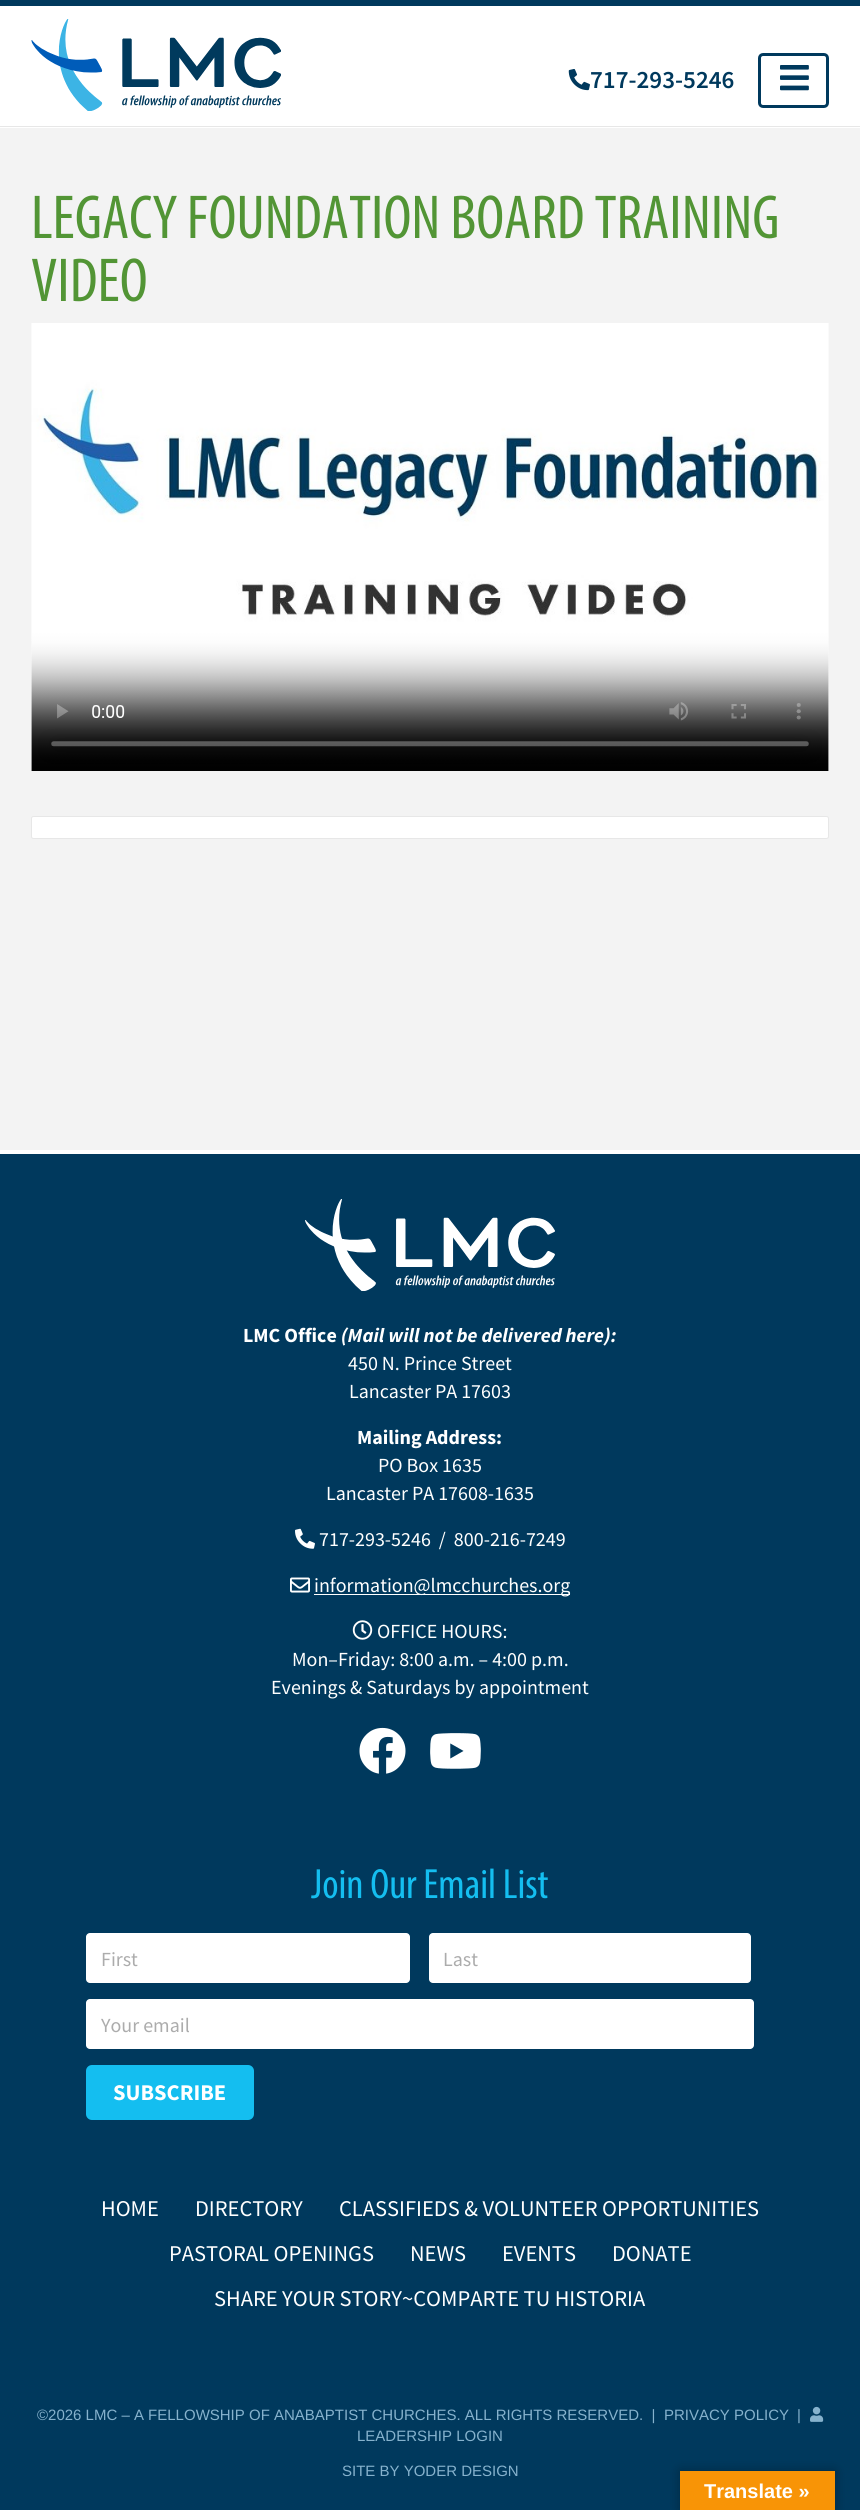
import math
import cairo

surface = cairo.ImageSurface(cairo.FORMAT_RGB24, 860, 2510)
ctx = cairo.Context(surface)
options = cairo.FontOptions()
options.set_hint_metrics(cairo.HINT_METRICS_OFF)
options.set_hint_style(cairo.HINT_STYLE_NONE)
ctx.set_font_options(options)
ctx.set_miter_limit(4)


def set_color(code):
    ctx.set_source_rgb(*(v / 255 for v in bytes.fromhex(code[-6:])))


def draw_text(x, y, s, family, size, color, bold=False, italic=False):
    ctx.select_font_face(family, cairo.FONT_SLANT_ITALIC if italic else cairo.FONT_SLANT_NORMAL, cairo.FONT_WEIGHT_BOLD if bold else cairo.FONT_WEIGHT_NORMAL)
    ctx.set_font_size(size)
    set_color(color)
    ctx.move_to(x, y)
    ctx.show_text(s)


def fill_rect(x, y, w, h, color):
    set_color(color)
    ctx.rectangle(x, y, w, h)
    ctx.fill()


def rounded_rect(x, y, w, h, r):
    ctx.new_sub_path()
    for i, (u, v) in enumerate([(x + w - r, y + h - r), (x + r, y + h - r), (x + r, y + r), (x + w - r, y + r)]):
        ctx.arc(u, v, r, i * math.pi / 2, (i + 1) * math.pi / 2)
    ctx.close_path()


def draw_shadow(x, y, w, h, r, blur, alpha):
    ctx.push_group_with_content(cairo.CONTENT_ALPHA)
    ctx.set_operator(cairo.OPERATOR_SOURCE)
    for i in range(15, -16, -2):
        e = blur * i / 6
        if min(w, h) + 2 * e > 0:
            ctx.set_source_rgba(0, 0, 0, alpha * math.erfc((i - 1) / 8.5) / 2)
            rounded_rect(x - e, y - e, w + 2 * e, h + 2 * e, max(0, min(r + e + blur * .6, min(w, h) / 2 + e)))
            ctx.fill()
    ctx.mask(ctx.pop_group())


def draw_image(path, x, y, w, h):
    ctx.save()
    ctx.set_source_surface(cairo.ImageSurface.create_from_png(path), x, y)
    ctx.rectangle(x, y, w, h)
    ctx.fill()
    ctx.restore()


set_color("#f3f3f3")
ctx.paint()
fill_rect(0, 6, 860, 122, "#ffffff")
fill_rect(0, 0, 860, 6, "#00395d")
fill_rect(0, 126, 860, 1, "#e7e7e7")
draw_image("assets/img1.png", 31, 19, 250, 92)
draw_image("assets/img2.png", 568, 69, 22, 22)
draw_text(590, 88, "717-293-5246", "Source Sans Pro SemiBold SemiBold", 25, "#00395d")
rounded_rect(759.5, 54.5, 68, 52, 3.5)
ctx.set_line_width(3)
ctx.stroke()
draw_image("assets/img3.png", 780, 65, 29, 26)
draw_text(31, 238, "LEGACY FOUNDATION BOARD TRAINING", "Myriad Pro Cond", 62.5, "#529535")
draw_text(31, 301, "VIDEO", "Myriad Pro Cond", 62.5, "#529535")
draw_image("assets/img4.png", 31, 323, 798, 448)
set_color("#ffffff")
rounded_rect(31.5, 816.5, 797, 22, 2)
ctx.fill_preserve()
set_color("#e7e7e7")
ctx.set_line_width(1)
ctx.stroke()
fill_rect(0, 1154, 860, 1356, "#00395d")
fill_rect(0, 1150, 860, 4, "#ffffff")
draw_image("assets/img5.png", 305, 1199, 250, 92)
draw_text(243, 1342, "LMC Office", "Source Sans Pro", 20, "#ffffff", bold=True)
draw_text(341, 1342, "(Mail will not be delivered here):", "Source Sans Pro", 20, "#ffffff", bold=True, italic=True)
draw_text(348, 1370, "450 N. Prince Street", "Source Sans Pro", 20, "#ffffff")
draw_text(349, 1398, "Lancaster PA 17603", "Source Sans Pro", 20, "#ffffff")
draw_text(357, 1444, "Mailing Address:", "Source Sans Pro", 20, "#ffffff", bold=True)
draw_text(378, 1472, "PO Box 1635", "Source Sans Pro", 20, "#ffffff")
draw_text(326, 1500, "Lancaster PA 17608-1635", "Source Sans Pro", 20, "#ffffff")
draw_image("assets/img6.png", 295, 1528, 20, 21)
draw_text(319, 1546, "717-293-5246  /  800-216-7249", "Source Sans Pro", 20, "#ffffff")
draw_image("assets/img7.png", 290, 1577, 20, 16)
fill_rect(314, 1594, 256, 1, "#ffffff")
draw_text(314, 1592, "information@lmcchurches.org", "Source Sans Pro", 20, "#ffffff")
draw_image("assets/img8.png", 352, 1620, 21, 20)
draw_text(377, 1638, "OFFICE HOURS:", "Source Sans Pro", 20, "#ffffff")
draw_text(292, 1666, "Mon–Friday: 8:00 a.m. – 4:00 p.m.", "Source Sans Pro", 20, "#ffffff")
draw_text(271, 1694, "Evenings & Saturdays by appointment", "Source Sans Pro", 20, "#ffffff")
draw_image("assets/img9.png", 359, 1727, 47, 47)
draw_image("assets/img10.png", 430, 1733, 51, 36)
draw_text(311, 1898, "Join Our Email List", "Myriad Pro Cond", 42.5, "#14bef0")
set_color("#ffffff")
rounded_rect(86, 1933, 324, 50, 4)
ctx.fill()
draw_text(101, 1966, "First", "Source Sans Pro", 20, "#acacac")
set_color("#ffffff")
rounded_rect(429, 1933, 322, 50, 4)
ctx.fill()
draw_text(443, 1966, "Last", "Source Sans Pro", 20, "#acacac")
set_color("#ffffff")
rounded_rect(86, 1999, 668, 50, 4)
ctx.fill()
draw_text(101, 2032, "Your email", "Source Sans Pro", 20, "#acacac")
set_color("#14bef0")
rounded_rect(86, 2065, 168, 55, 6)
ctx.fill()
draw_text(113, 2100, "SUBSCRIBE", "Source Sans Pro", 22.5, "#ffffff", bold=True)
draw_text(101, 2216, "HOME", "Source Sans Pro", 22.5, "#ffffff")
draw_text(195, 2216, "DIRECTORY", "Source Sans Pro", 22.5, "#ffffff")
draw_text(339, 2216, "CLASSIFIEDS & VOLUNTEER OPPORTUNITIES", "Source Sans Pro", 22.5, "#ffffff")
draw_text(169, 2261, "PASTORAL OPENINGS", "Source Sans Pro", 22.5, "#ffffff")
draw_text(410, 2261, "NEWS", "Source Sans Pro", 22.5, "#ffffff")
draw_text(502, 2261, "EVENTS", "Source Sans Pro", 22.5, "#ffffff")
draw_text(612, 2261, "DONATE", "Source Sans Pro", 22.5, "#ffffff")
draw_text(214, 2306, "SHARE YOUR STORY~COMPARTE TU HISTORIA", "Source Sans Pro", 22.5, "#ffffff")
draw_text(37, 2420, "©2026 LMC – A FELLOWSHIP OF ANABAPTIST CHURCHES. ALL RIGHTS RESERVED.  |", "Liberation Sans", 15, "#86b2cd")
draw_text(664, 2420, "PRIVACY POLICY", "Liberation Sans", 15, "#86b2cd")
draw_text(797, 2420, "|", "Liberation Sans", 15, "#86b2cd")
draw_image("assets/img11.png", 810, 2406, 14, 16)
draw_text(357, 2441, "LEADERSHIP LOGIN", "Liberation Sans", 15, "#86b2cd")
draw_text(342, 2476, "SITE BY YODER DESIGN", "Liberation Sans", 15, "#86b2cd")
set_color("#000000")
draw_shadow(680, 2471, 155, 39, 0, 5.5, 0.3)
fill_rect(680, 2471, 155, 39, "#f89406")
draw_text(704, 2498, "Translate »", "Liberation Sans", 20, "#ffffff", bold=True)
surface.write_to_png("output.png")
